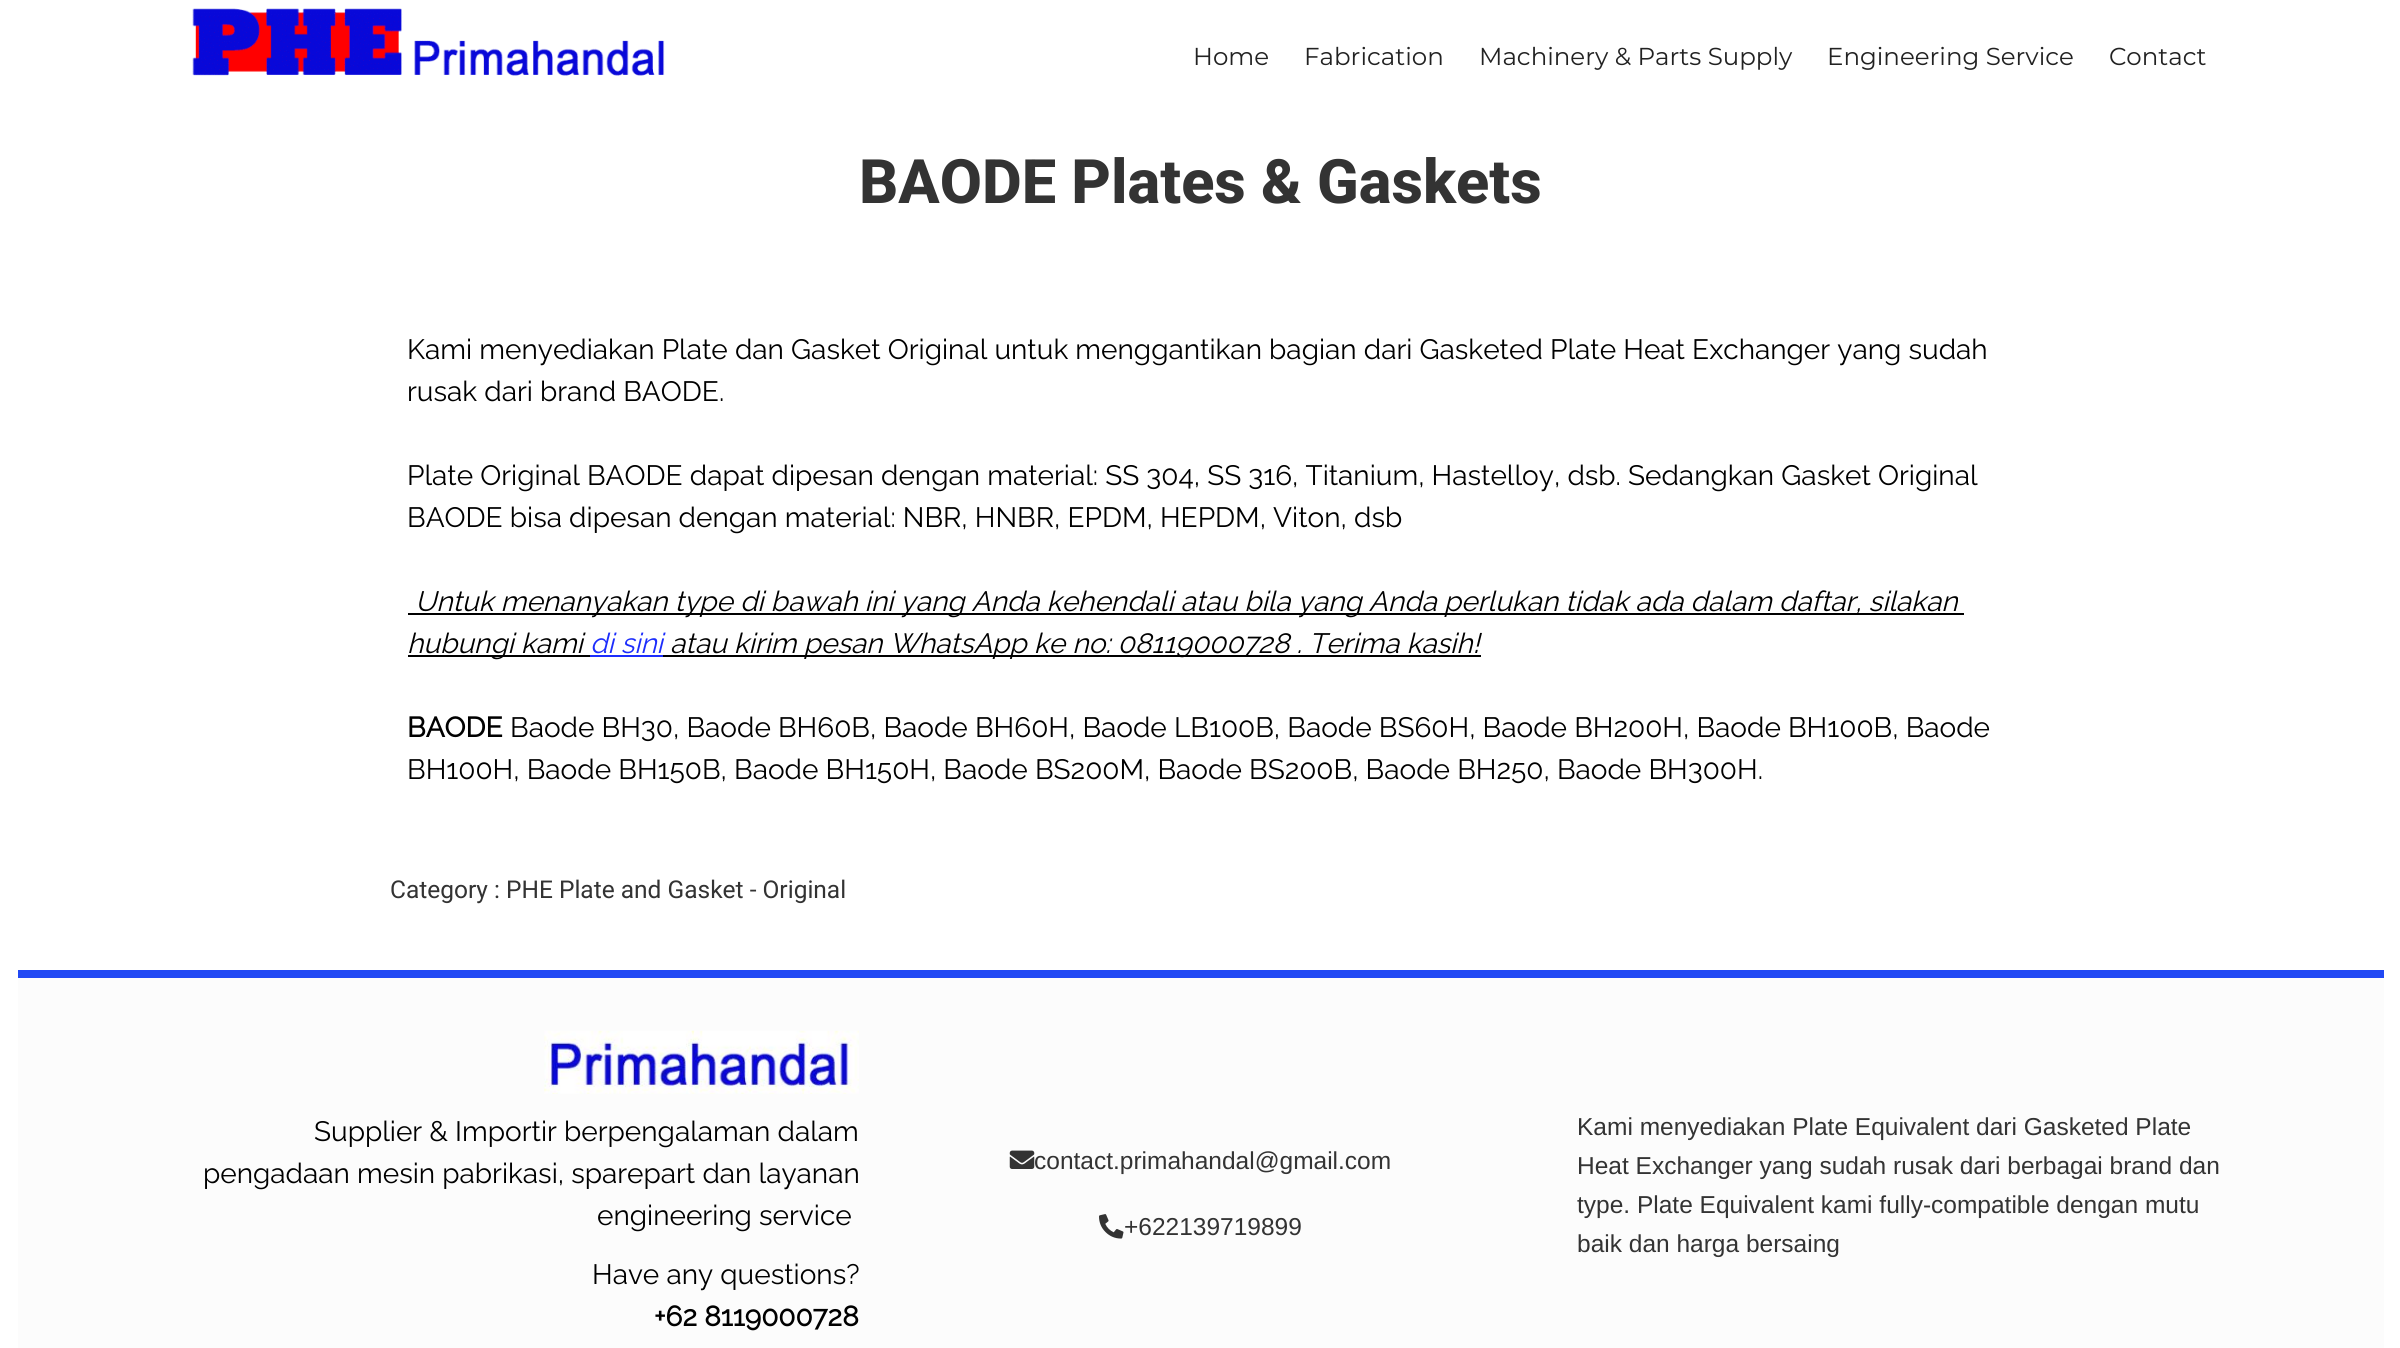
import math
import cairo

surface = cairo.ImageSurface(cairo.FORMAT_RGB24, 2400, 1348)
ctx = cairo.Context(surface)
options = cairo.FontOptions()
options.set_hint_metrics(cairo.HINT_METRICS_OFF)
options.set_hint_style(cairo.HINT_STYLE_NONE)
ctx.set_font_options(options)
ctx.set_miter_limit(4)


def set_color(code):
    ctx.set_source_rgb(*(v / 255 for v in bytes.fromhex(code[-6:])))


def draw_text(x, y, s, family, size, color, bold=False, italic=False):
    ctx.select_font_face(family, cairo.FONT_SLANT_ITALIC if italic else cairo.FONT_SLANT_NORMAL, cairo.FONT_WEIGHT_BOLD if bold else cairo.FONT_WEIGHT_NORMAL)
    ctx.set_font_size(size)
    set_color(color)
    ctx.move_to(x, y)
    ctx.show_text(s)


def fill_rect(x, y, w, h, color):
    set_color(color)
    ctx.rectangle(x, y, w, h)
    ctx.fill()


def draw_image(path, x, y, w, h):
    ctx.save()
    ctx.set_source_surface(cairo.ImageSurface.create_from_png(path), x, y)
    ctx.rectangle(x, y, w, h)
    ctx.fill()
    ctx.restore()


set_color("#ffffff")
ctx.paint()
draw_image("assets/img1.png", 192, 8, 473, 68)
draw_text(1193, 65, "Home", "Montserrat", 24.5, "#222222")
draw_text(1304, 65, "Fabrication", "Montserrat", 24.5, "#222222")
draw_text(1479, 65, "Machinery & Parts Supply", "Montserrat", 24.5, "#222222")
draw_text(1827, 65, "Engineering Service", "Montserrat", 24.5, "#222222")
draw_text(2109, 65, "Contact", "Montserrat", 24.5, "#222222")
draw_text(859, 203, "BAODE Plates & Gaskets", "Roboto ExtraBold", 61.25, "#333333")
draw_text(407, 359, "Kami menyediakan Plate dan Gasket Original untuk menggantikan bagian dari Gasketed Plate Heat Exchanger yang sudah", "Raleway Thin", 28, "#000000")
draw_text(407, 401, "rusak dari brand BAODE.", "Raleway Thin", 28, "#000000")
draw_text(407, 485, "Plate Original BAODE dapat dipesan dengan material: SS 304, SS 316, Titanium, Hastelloy, dsb. Sedangkan Gasket Original", "Raleway Thin", 28, "#000000")
draw_text(407, 527, "BAODE bisa dipesan dengan material: NBR, HNBR, EPDM, HEPDM, Viton, dsb", "Raleway Thin", 28, "#000000")
fill_rect(408, 613, 1556, 2, "#000000")
draw_text(415, 611, "Untuk menanyakan type di bawah ini yang Anda kehendali atau bila yang Anda perlukan tidak ada dalam daftar, silakan", "Raleway Thin", 28, "#000000", italic=True)
fill_rect(408, 655, 182, 2, "#000000")
draw_text(407, 653, "hubungi kami", "Raleway Thin", 28, "#000000", italic=True)
draw_text(590, 653, "di sini", "Raleway Thin", 28, "#1c2dfc", italic=True)
fill_rect(590, 655, 73, 2, "#1c2dfc")
fill_rect(663, 655, 818, 2, "#000000")
draw_text(670, 653, "atau kirim pesan WhatsApp ke no: 08119000728 . Terima kasih!", "Raleway Thin", 28, "#000000", italic=True)
draw_text(407, 737, "BAODE", "Raleway", 28, "#000000", bold=True)
draw_text(510, 737, "Baode BH30, Baode BH60B, Baode BH60H, Baode LB100B, Baode BS60H, Baode BH200H, Baode BH100B, Baode", "Raleway Thin", 28, "#000000")
draw_text(407, 779, "BH100H, Baode BH150B, Baode BH150H, Baode BS200M, Baode BS200B, Baode BH250, Baode BH300H.", "Raleway Thin", 28, "#000000")
draw_text(390, 898, "Category : PHE Plate and Gasket - Original", "Roboto", 24.5, "#333333")
fill_rect(18, 970, 2366, 8, "#2249f4")
fill_rect(18, 978, 2366, 370, "#fcfcfc")
draw_image("assets/img2.png", 544, 1030, 315, 64)
draw_text(314, 1141, "Supplier & Importir berpengalaman dalam", "Raleway Thin", 28, "#000000")
draw_text(203, 1183, "pengadaan mesin pabrikasi, sparepart dan layanan", "Raleway Thin", 28, "#000000")
draw_text(597, 1225, "engineering service", "Raleway Thin", 28, "#000000")
draw_text(592, 1284, "Have any questions?", "Raleway Thin", 28, "#000000")
draw_text(654, 1326, "+62 8119000728", "Raleway", 28, "#000000", bold=True)
draw_image("assets/img3.png", 1009, 1150, 26, 19)
draw_text(1034, 1169, "contact.primahandal@gmail.com", "Liberation Sans", 24.5, "#333333")
draw_image("assets/img4.png", 1099, 1214, 25, 25)
draw_text(1124, 1235, "+622139719899", "Liberation Sans", 24.5, "#333333")
draw_text(1577, 1135, "Kami menyediakan Plate Equivalent dari Gasketed Plate", "Liberation Sans", 24.5, "#333333")
draw_text(1577, 1174, "Heat Exchanger yang sudah rusak dari berbagai brand dan", "Liberation Sans", 24.5, "#333333")
draw_text(1577, 1213, "type. Plate Equivalent kami fully-compatible dengan mutu", "Liberation Sans", 24.5, "#333333")
draw_text(1577, 1252, "baik dan harga bersaing", "Liberation Sans", 24.5, "#333333")
surface.write_to_png("output.png")
